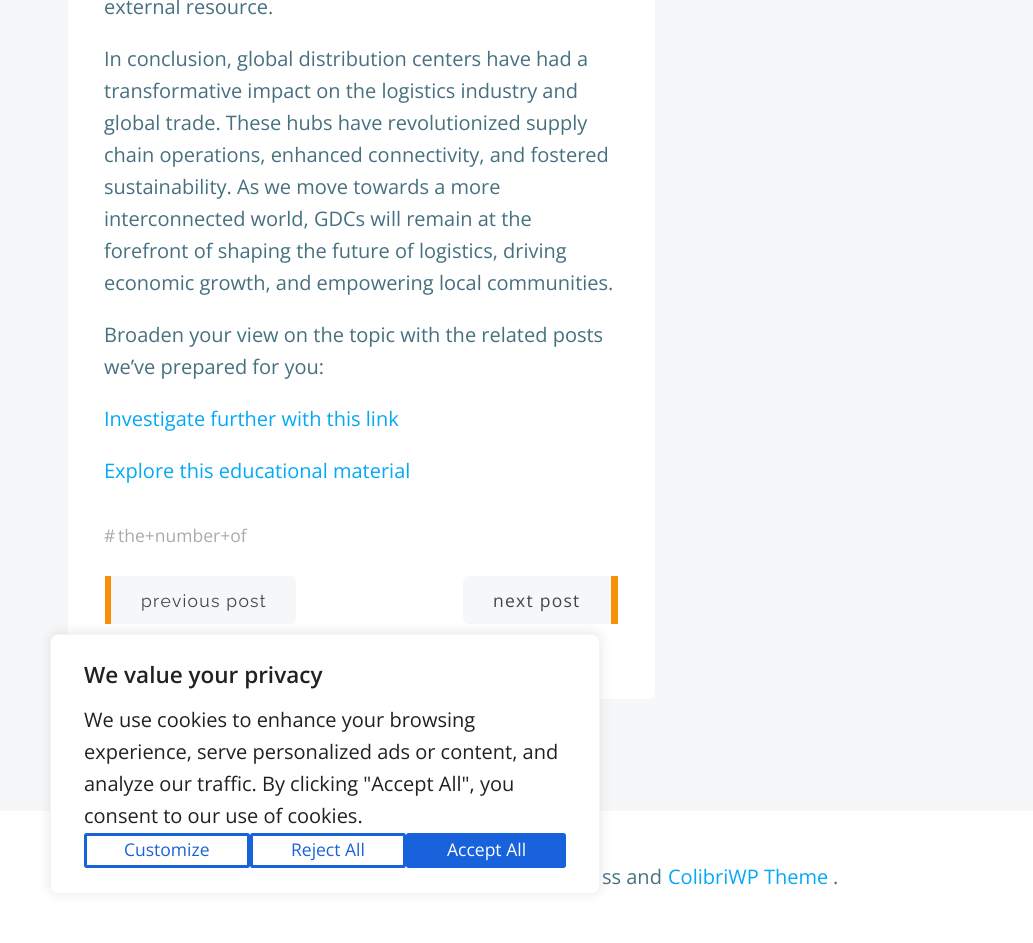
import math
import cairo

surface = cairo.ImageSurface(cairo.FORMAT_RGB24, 1033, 943)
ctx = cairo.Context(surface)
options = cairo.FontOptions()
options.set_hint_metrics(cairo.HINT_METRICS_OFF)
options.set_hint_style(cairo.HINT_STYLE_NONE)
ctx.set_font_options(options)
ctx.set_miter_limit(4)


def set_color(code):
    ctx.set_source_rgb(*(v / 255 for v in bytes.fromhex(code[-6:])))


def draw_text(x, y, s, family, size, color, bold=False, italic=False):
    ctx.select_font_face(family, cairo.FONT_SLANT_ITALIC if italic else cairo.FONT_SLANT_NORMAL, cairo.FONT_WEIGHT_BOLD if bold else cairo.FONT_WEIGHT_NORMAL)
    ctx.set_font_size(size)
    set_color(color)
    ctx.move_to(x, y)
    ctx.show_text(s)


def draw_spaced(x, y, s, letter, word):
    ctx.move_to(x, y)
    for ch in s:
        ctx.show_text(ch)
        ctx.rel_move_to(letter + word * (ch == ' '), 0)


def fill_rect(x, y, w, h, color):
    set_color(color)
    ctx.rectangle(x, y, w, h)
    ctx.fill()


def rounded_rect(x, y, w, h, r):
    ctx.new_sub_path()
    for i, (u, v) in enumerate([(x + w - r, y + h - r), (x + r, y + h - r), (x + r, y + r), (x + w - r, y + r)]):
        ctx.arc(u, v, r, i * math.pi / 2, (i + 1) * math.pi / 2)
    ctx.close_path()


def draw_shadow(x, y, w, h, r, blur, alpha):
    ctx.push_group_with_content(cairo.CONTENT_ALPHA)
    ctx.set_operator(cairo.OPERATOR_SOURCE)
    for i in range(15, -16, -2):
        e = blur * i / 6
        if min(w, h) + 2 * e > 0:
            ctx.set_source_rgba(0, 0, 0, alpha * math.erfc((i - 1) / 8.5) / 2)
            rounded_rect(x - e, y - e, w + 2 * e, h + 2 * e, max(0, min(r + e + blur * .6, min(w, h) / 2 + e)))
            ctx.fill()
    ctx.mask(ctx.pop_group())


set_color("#ffffff")
ctx.paint()
fill_rect(0, 0, 1033, 811, "#f5f7f8")
set_color("#ffffff")
rounded_rect(68, -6, 587, 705, 6)
ctx.fill()
draw_text(104, 14, "external resource.", "Open Sans", 20, "#46707f")
draw_text(104, 66, "In conclusion, global distribution centers have had a", "Open Sans", 20, "#46707f")
draw_text(104, 98, "transformative impact on the logistics industry and", "Open Sans", 20, "#46707f")
draw_text(104, 130, "global trade. These hubs have revolutionized supply", "Open Sans", 20, "#46707f")
draw_text(104, 162, "chain operations, enhanced connectivity, and fostered", "Open Sans", 20, "#46707f")
draw_text(104, 194, "sustainability. As we move towards a more", "Open Sans", 20, "#46707f")
draw_text(104, 226, "interconnected world, GDCs will remain at the", "Open Sans", 20, "#46707f")
draw_text(104, 258, "forefront of shaping the future of logistics, driving", "Open Sans", 20, "#46707f")
draw_text(104, 290, "economic growth, and empowering local communities.", "Open Sans", 20, "#46707f")
draw_text(104, 342, "Broaden your view on the topic with the related posts", "Open Sans", 20, "#46707f")
draw_text(104, 374, "we’ve prepared for you:", "Open Sans", 20, "#46707f")
draw_text(104, 426, "Investigate further with this link", "Open Sans", 20, "#03a9f4")
draw_text(104, 478, "Explore this educational material", "Open Sans", 20, "#03a9f4")
draw_text(104, 542, "#", "Open Sans", 17.5, "#aaaaaa")
draw_text(118, 542, "the+number+of", "Open Sans", 17.5, "#aaaaaa")
set_color("#f5f7f8")
ctx.new_path()
ctx.move_to(111, 576)
ctx.line_to(290, 576)
ctx.curve_to(293.5, 576, 296, 578.5, 296, 582)
ctx.line_to(296, 618)
ctx.curve_to(296, 621.5, 293.5, 624, 290, 624)
ctx.line_to(111, 624)
ctx.close_path()
ctx.fill()
fill_rect(105, 576, 6, 48, "#f79007")
ctx.select_font_face("Raleway")
set_color("#444444")
draw_spaced(141, 607, "previous post", 1.25, 0)
set_color("#f5f7f8")
ctx.new_path()
ctx.move_to(469, 576)
ctx.line_to(611, 576)
ctx.line_to(611, 624)
ctx.line_to(469, 624)
ctx.curve_to(465.5, 624, 463, 621.5, 463, 618)
ctx.line_to(463, 582)
ctx.curve_to(463, 578.5, 465.5, 576, 469, 576)
ctx.close_path()
ctx.fill()
fill_rect(611, 576, 7, 48, "#f79007")
ctx.select_font_face("Open Sans")
set_color("#444444")
draw_spaced(493, 607, "next post", 1.25, 0)
draw_text(602, 884, "ss and", "Open Sans", 20, "#46707f")
draw_text(668, 884, "ColibriWP Theme", "Open Sans", 20, "#03a9f4")
draw_text(833, 884, ".", "Open Sans", 20, "#46707f")
set_color("#acabab")
draw_shadow(50, 633, 550, 260, 8, 6, 0.3)
set_color("#ffffff")
rounded_rect(50.5, 634.5, 549, 259, 7.5)
ctx.fill_preserve()
set_color("#f4f4f4")
ctx.set_line_width(1)
ctx.stroke()
draw_text(84, 683, "We value your privacy", "Open Sans SemiBold", 22.5, "#212121")
draw_text(84, 727, "We use cookies to enhance your browsing", "Open Sans", 20, "#212121")
draw_text(84, 759, "experience, serve personalized ads or content, and", "Open Sans", 20, "#212121")
draw_text(84, 791, "analyze our traffic. By clicking \"Accept All\", you", "Open Sans", 20, "#212121")
draw_text(84, 823, "consent to our use of cookies.", "Open Sans", 20, "#212121")
rounded_rect(85.5, 834.5, 163, 32, 1)
set_color("#1863dc")
ctx.set_line_width(3)
ctx.stroke()
draw_text(124, 856, "Customize", "Open Sans", 17.5, "#1863dc")
rounded_rect(251.5, 834.5, 153, 32, 1)
ctx.stroke()
draw_text(291, 856, "Reject All", "Open Sans", 17.5, "#1863dc")
rounded_rect(407.5, 834.5, 157, 32, 1)
ctx.fill_preserve()
ctx.stroke()
draw_text(447, 856, "Accept All", "Open Sans", 17.5, "#ffffff")
surface.write_to_png("output.png")
